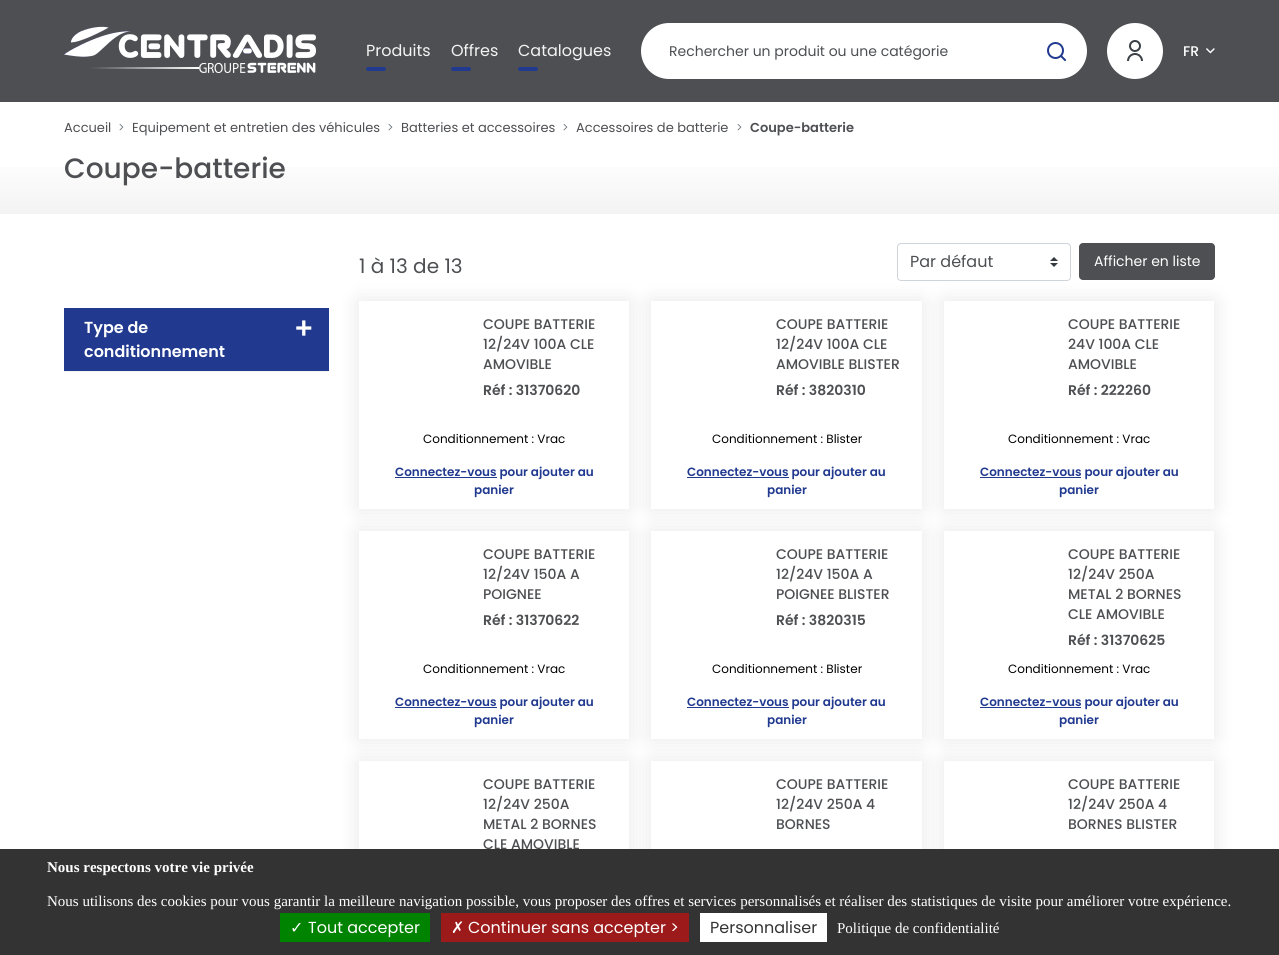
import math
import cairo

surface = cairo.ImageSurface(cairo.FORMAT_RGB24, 1279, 955)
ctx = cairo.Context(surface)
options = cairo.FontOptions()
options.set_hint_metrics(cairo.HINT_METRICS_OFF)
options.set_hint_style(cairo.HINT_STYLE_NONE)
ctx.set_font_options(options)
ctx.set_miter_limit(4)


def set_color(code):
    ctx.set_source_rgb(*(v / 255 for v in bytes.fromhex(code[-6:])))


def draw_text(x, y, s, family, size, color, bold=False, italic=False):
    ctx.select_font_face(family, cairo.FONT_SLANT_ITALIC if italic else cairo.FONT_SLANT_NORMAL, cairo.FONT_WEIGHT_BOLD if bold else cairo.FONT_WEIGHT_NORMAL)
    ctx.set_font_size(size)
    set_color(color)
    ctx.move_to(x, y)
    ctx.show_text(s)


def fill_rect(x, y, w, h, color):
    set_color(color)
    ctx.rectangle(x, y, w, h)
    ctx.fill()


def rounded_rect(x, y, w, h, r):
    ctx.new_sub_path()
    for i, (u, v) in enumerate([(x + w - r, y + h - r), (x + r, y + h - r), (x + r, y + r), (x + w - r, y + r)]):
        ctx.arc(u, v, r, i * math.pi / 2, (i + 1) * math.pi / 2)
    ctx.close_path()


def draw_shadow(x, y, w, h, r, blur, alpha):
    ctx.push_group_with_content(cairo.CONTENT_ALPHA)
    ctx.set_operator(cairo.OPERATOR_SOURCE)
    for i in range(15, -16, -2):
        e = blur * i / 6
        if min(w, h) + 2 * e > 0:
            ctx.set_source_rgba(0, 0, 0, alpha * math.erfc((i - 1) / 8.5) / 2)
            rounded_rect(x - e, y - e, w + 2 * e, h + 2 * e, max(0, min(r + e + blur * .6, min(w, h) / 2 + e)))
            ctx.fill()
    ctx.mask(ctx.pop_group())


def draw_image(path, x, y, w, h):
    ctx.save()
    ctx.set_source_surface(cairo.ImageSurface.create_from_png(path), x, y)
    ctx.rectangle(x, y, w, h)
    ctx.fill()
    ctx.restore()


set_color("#ffffff")
ctx.paint()
fill_rect(0, 0, 1279, 102, "#4d4f52")
draw_image("assets/img1.png", 64, 26, 252, 47)
draw_text(366, 56, "Produits", "Poppins", 16, "#f4f4f4")
set_color("#213a8f")
rounded_rect(366, 67, 20, 4, 2)
ctx.fill()
draw_text(451, 56, "Offres", "Poppins", 16, "#f4f4f4")
set_color("#213a8f")
rounded_rect(451, 67, 20, 4, 2)
ctx.fill()
draw_text(518, 56, "Catalogues", "Poppins", 16, "#f4f4f4")
set_color("#213a8f")
rounded_rect(518, 67, 20, 4, 2)
ctx.fill()
set_color("#ffffff")
rounded_rect(641, 23, 446, 56, 28)
ctx.fill()
draw_text(669, 56, "Rechercher un produit ou une catégorie", "Poppins", 14, "#4d4f52")
draw_image("assets/img2.png", 1047, 42, 20, 20)
set_color("#ffffff")
ctx.arc(1135, 51, 28, 0, 2 * math.pi)
ctx.fill()
draw_image("assets/img3.png", 1127, 40, 16, 21)
draw_text(1183, 56, "FR", "Poppins Medium", 14, "#ffffff")
draw_image("assets/img4.png", 1206, 48, 9, 6)
draw_text(64, 132, "Accueil", "Poppins", 13, "#4d4f52")
draw_image("assets/img5.png", 119, 124, 5, 7)
draw_text(132, 132, "Equipement et entretien des véhicules", "Poppins", 13, "#4d4f52")
draw_image("assets/img5.png", 388, 124, 5, 7)
draw_text(401, 132, "Batteries et accessoires", "Poppins", 13, "#4d4f52")
draw_image("assets/img5.png", 563, 124, 5, 7)
draw_text(576, 132, "Accessoires de batterie", "Poppins", 13, "#4d4f52")
draw_image("assets/img5.png", 737, 124, 5, 7)
draw_text(750, 132, "Coupe-batterie", "Poppins SemiBold", 13, "#4d4f52")
gradient = cairo.LinearGradient(640, 154, 640, 214)
gradient.add_color_stop_rgba(0, 1, 1, 1, 1)
gradient.add_color_stop_rgba(1, 0.953, 0.953, 0.953, 1)
ctx.set_source(gradient)
ctx.rectangle(0, 167, 1279, 47)
ctx.fill()
draw_text(64, 178, "Coupe-batterie", "Poppins Medium", 28, "#4d4f52")
fill_rect(64, 371, 265, 1, "#f4f4f4")
ctx.save()
ctx.set_fill_rule(cairo.FILL_RULE_EVEN_ODD)
ctx.new_path()
ctx.move_to(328, 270)
ctx.line_to(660, 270)
ctx.line_to(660, 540)
ctx.line_to(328, 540)
ctx.close_path()
ctx.move_to(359, 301)
ctx.line_to(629, 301)
ctx.line_to(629, 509)
ctx.line_to(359, 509)
ctx.close_path()
ctx.clip()
set_color("#000000")
draw_shadow(359, 301, 270, 208, 0, 10, 0.1)
ctx.restore()
fill_rect(64, 308, 265, 63, "#213a8f")
draw_text(84, 333, "Type de", "Poppins SemiBold", 16, "#ffffff")
draw_text(295, 338, "+", "Liberation Sans", 30, "#ffffff", bold=True)
draw_text(84, 357, "conditionnement", "Poppins SemiBold", 16, "#ffffff")
draw_text(359, 273, "1 à 13 de 13", "Poppins", 20, "#4d4f52")
draw_image("assets/img6.png", 1050, 257, 8, 10)
rounded_rect(897.5, 243.5, 173, 37, 3.5)
set_color("#ced4da")
ctx.set_line_width(1)
ctx.stroke()
draw_text(910, 267, "Par défaut", "Poppins", 16, "#4d4f52")
ctx.save()
ctx.set_fill_rule(cairo.FILL_RULE_EVEN_ODD)
ctx.new_path()
ctx.move_to(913, 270)
ctx.line_to(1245, 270)
ctx.line_to(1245, 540)
ctx.line_to(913, 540)
ctx.close_path()
ctx.move_to(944, 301)
ctx.line_to(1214, 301)
ctx.line_to(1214, 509)
ctx.line_to(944, 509)
ctx.close_path()
ctx.clip()
set_color("#000000")
draw_shadow(944, 301, 270, 208, 0, 10, 0.1)
ctx.restore()
rounded_rect(1079, 243, 136, 37, 4)
ctx.fill()
draw_text(1094, 266, "Afficher en liste", "Poppins", 14, "#ffffff")
draw_text(483, 329, "COUPE BATTERIE", "Poppins Medium", 14, "#4d4f52")
draw_text(483, 349, "12/24V 100A CLE", "Poppins Medium", 14, "#4d4f52")
draw_text(483, 369, "AMOVIBLE", "Poppins Medium", 14, "#4d4f52")
draw_text(483, 395, "Réf : 31370620", "Poppins SemiBold", 14, "#4d4f52")
draw_text(423, 443, "Conditionnement : Vrac", "Poppins", 12, "#000000")
fill_rect(395, 477, 102, 1, "#213a8f")
draw_text(395, 476, "Connectez-vous pour ajouter au", "Poppins SemiBold", 12, "#213a8f")
draw_text(474, 494, "panier", "Poppins SemiBold", 12, "#213a8f")
ctx.save()
ctx.set_fill_rule(cairo.FILL_RULE_EVEN_ODD)
ctx.new_path()
ctx.move_to(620, 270)
ctx.line_to(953, 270)
ctx.line_to(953, 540)
ctx.line_to(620, 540)
ctx.close_path()
ctx.move_to(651, 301)
ctx.line_to(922, 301)
ctx.line_to(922, 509)
ctx.line_to(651, 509)
ctx.close_path()
ctx.clip()
set_color("#000000")
draw_shadow(651, 301, 271, 208, 0, 10, 0.1)
ctx.restore()
draw_text(776, 329, "COUPE BATTERIE", "Poppins Medium", 14, "#4d4f52")
draw_text(776, 349, "12/24V 100A CLE", "Poppins Medium", 14, "#4d4f52")
draw_text(776, 369, "AMOVIBLE BLISTER", "Poppins Medium", 14, "#4d4f52")
draw_text(776, 395, "Réf : 3820310", "Poppins SemiBold", 14, "#4d4f52")
draw_text(712, 443, "Conditionnement : Blister", "Poppins", 12, "#000000")
fill_rect(687, 477, 102, 1, "#213a8f")
draw_text(687, 476, "Connectez-vous pour ajouter au", "Poppins SemiBold", 12, "#213a8f")
draw_text(767, 494, "panier", "Poppins SemiBold", 12, "#213a8f")
draw_text(1068, 329, "COUPE BATTERIE", "Poppins Medium", 14, "#4d4f52")
draw_text(1068, 349, "24V 100A CLE", "Poppins Medium", 14, "#4d4f52")
draw_text(1068, 369, "AMOVIBLE", "Poppins Medium", 14, "#4d4f52")
draw_text(1068, 395, "Réf : 222260", "Poppins SemiBold", 14, "#4d4f52")
draw_text(1008, 443, "Conditionnement : Vrac", "Poppins", 12, "#000000")
fill_rect(980, 477, 101, 1, "#213a8f")
draw_text(980, 476, "Connectez-vous pour ajouter au", "Poppins SemiBold", 12, "#213a8f")
draw_text(1059, 494, "panier", "Poppins SemiBold", 12, "#213a8f")
ctx.save()
ctx.set_fill_rule(cairo.FILL_RULE_EVEN_ODD)
ctx.new_path()
ctx.move_to(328, 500)
ctx.line_to(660, 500)
ctx.line_to(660, 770)
ctx.line_to(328, 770)
ctx.close_path()
ctx.move_to(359, 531)
ctx.line_to(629, 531)
ctx.line_to(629, 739)
ctx.line_to(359, 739)
ctx.close_path()
ctx.clip()
set_color("#000000")
draw_shadow(359, 531, 270, 208, 0, 10, 0.1)
ctx.restore()
draw_text(483, 559, "COUPE BATTERIE", "Poppins Medium", 14, "#4d4f52")
draw_text(483, 579, "12/24V 150A A", "Poppins Medium", 14, "#4d4f52")
draw_text(483, 599, "POIGNEE", "Poppins Medium", 14, "#4d4f52")
draw_text(483, 625, "Réf : 31370622", "Poppins SemiBold", 14, "#4d4f52")
draw_text(423, 673, "Conditionnement : Vrac", "Poppins", 12, "#000000")
fill_rect(395, 707, 102, 1, "#213a8f")
draw_text(395, 706, "Connectez-vous pour ajouter au", "Poppins SemiBold", 12, "#213a8f")
draw_text(474, 724, "panier", "Poppins SemiBold", 12, "#213a8f")
ctx.save()
ctx.set_fill_rule(cairo.FILL_RULE_EVEN_ODD)
ctx.new_path()
ctx.move_to(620, 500)
ctx.line_to(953, 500)
ctx.line_to(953, 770)
ctx.line_to(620, 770)
ctx.close_path()
ctx.move_to(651, 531)
ctx.line_to(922, 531)
ctx.line_to(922, 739)
ctx.line_to(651, 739)
ctx.close_path()
ctx.clip()
set_color("#000000")
draw_shadow(651, 531, 271, 208, 0, 10, 0.1)
ctx.restore()
draw_text(776, 559, "COUPE BATTERIE", "Poppins Medium", 14, "#4d4f52")
draw_text(776, 579, "12/24V 150A A", "Poppins Medium", 14, "#4d4f52")
draw_text(776, 599, "POIGNEE BLISTER", "Poppins Medium", 14, "#4d4f52")
draw_text(776, 625, "Réf : 3820315", "Poppins SemiBold", 14, "#4d4f52")
draw_text(712, 673, "Conditionnement : Blister", "Poppins", 12, "#000000")
fill_rect(687, 707, 102, 1, "#213a8f")
draw_text(687, 706, "Connectez-vous pour ajouter au", "Poppins SemiBold", 12, "#213a8f")
draw_text(767, 724, "panier", "Poppins SemiBold", 12, "#213a8f")
ctx.save()
ctx.set_fill_rule(cairo.FILL_RULE_EVEN_ODD)
ctx.new_path()
ctx.move_to(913, 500)
ctx.line_to(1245, 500)
ctx.line_to(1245, 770)
ctx.line_to(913, 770)
ctx.close_path()
ctx.move_to(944, 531)
ctx.line_to(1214, 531)
ctx.line_to(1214, 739)
ctx.line_to(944, 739)
ctx.close_path()
ctx.clip()
set_color("#000000")
draw_shadow(944, 531, 270, 208, 0, 10, 0.1)
ctx.restore()
draw_text(1068, 559, "COUPE BATTERIE", "Poppins Medium", 14, "#4d4f52")
draw_text(1068, 579, "12/24V 250A", "Poppins Medium", 14, "#4d4f52")
draw_text(1068, 599, "METAL 2 BORNES", "Poppins Medium", 14, "#4d4f52")
draw_text(1068, 619, "CLE AMOVIBLE", "Poppins Medium", 14, "#4d4f52")
draw_text(1068, 645, "Réf : 31370625", "Poppins SemiBold", 14, "#4d4f52")
draw_text(1008, 673, "Conditionnement : Vrac", "Poppins", 12, "#000000")
fill_rect(980, 707, 101, 1, "#213a8f")
draw_text(980, 706, "Connectez-vous pour ajouter au", "Poppins SemiBold", 12, "#213a8f")
draw_text(1059, 724, "panier", "Poppins SemiBold", 12, "#213a8f")
ctx.save()
ctx.set_fill_rule(cairo.FILL_RULE_EVEN_ODD)
ctx.new_path()
ctx.move_to(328, 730)
ctx.line_to(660, 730)
ctx.line_to(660, 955)
ctx.line_to(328, 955)
ctx.close_path()
ctx.move_to(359, 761)
ctx.line_to(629, 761)
ctx.line_to(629, 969)
ctx.line_to(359, 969)
ctx.close_path()
ctx.clip()
set_color("#000000")
draw_shadow(359, 761, 270, 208, 0, 10, 0.1)
ctx.restore()
draw_text(483, 789, "COUPE BATTERIE", "Poppins Medium", 14, "#4d4f52")
draw_text(483, 809, "12/24V 250A", "Poppins Medium", 14, "#4d4f52")
draw_text(483, 829, "METAL 2 BORNES", "Poppins Medium", 14, "#4d4f52")
draw_text(483, 849, "CLE AMOVIBLE", "Poppins Medium", 14, "#4d4f52")
ctx.save()
ctx.set_fill_rule(cairo.FILL_RULE_EVEN_ODD)
ctx.new_path()
ctx.move_to(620, 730)
ctx.line_to(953, 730)
ctx.line_to(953, 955)
ctx.line_to(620, 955)
ctx.close_path()
ctx.move_to(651, 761)
ctx.line_to(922, 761)
ctx.line_to(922, 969)
ctx.line_to(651, 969)
ctx.close_path()
ctx.clip()
set_color("#000000")
draw_shadow(651, 761, 271, 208, 0, 10, 0.1)
ctx.restore()
draw_text(776, 789, "COUPE BATTERIE", "Poppins Medium", 14, "#4d4f52")
draw_text(776, 809, "12/24V 250A 4", "Poppins Medium", 14, "#4d4f52")
draw_text(776, 829, "BORNES", "Poppins Medium", 14, "#4d4f52")
ctx.save()
ctx.set_fill_rule(cairo.FILL_RULE_EVEN_ODD)
ctx.new_path()
ctx.move_to(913, 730)
ctx.line_to(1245, 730)
ctx.line_to(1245, 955)
ctx.line_to(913, 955)
ctx.close_path()
ctx.move_to(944, 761)
ctx.line_to(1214, 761)
ctx.line_to(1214, 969)
ctx.line_to(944, 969)
ctx.close_path()
ctx.clip()
set_color("#000000")
draw_shadow(944, 761, 270, 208, 0, 10, 0.1)
ctx.restore()
draw_text(1068, 789, "COUPE BATTERIE", "Poppins Medium", 14, "#4d4f52")
draw_text(1068, 809, "12/24V 250A 4", "Poppins Medium", 14, "#4d4f52")
draw_text(1068, 829, "BORNES BLISTER", "Poppins Medium", 14, "#4d4f52")
fill_rect(0, 849, 1279, 106, "#333333")
draw_text(47, 872, "Nous respectons votre vie privée", "Liberation Serif", 15, "#ffffff", bold=True)
draw_text(47, 906, "Nous utilisons des cookies pour vous garantir la meilleure navigation possible, vous proposer des offres et services personnalisés et réaliser des statistiques de visite pour améliorer votre expérience.", "Liberation Serif", 15, "#ffffff")
fill_rect(280, 913, 150, 29, "#008300")
draw_text(290, 933, "✓", "DejaVu Sans", 16, "#ffffff")
draw_text(308, 933, "Tout accepter", "Poppins", 16, "#ffffff")
fill_rect(441, 913, 248, 29, "#9c1a1a")
draw_text(451, 933, "✗", "DejaVu Sans", 16, "#ffffff")
draw_text(468, 933, "Continuer sans accepter >", "Poppins", 16, "#ffffff")
fill_rect(700, 913, 127, 29, "#ffffff")
draw_text(710, 933, "Personnaliser", "Poppins", 16, "#333333")
draw_text(837, 933, "Politique de confidentialité", "Liberation Serif", 15, "#ffffff")
surface.write_to_png("output.png")
